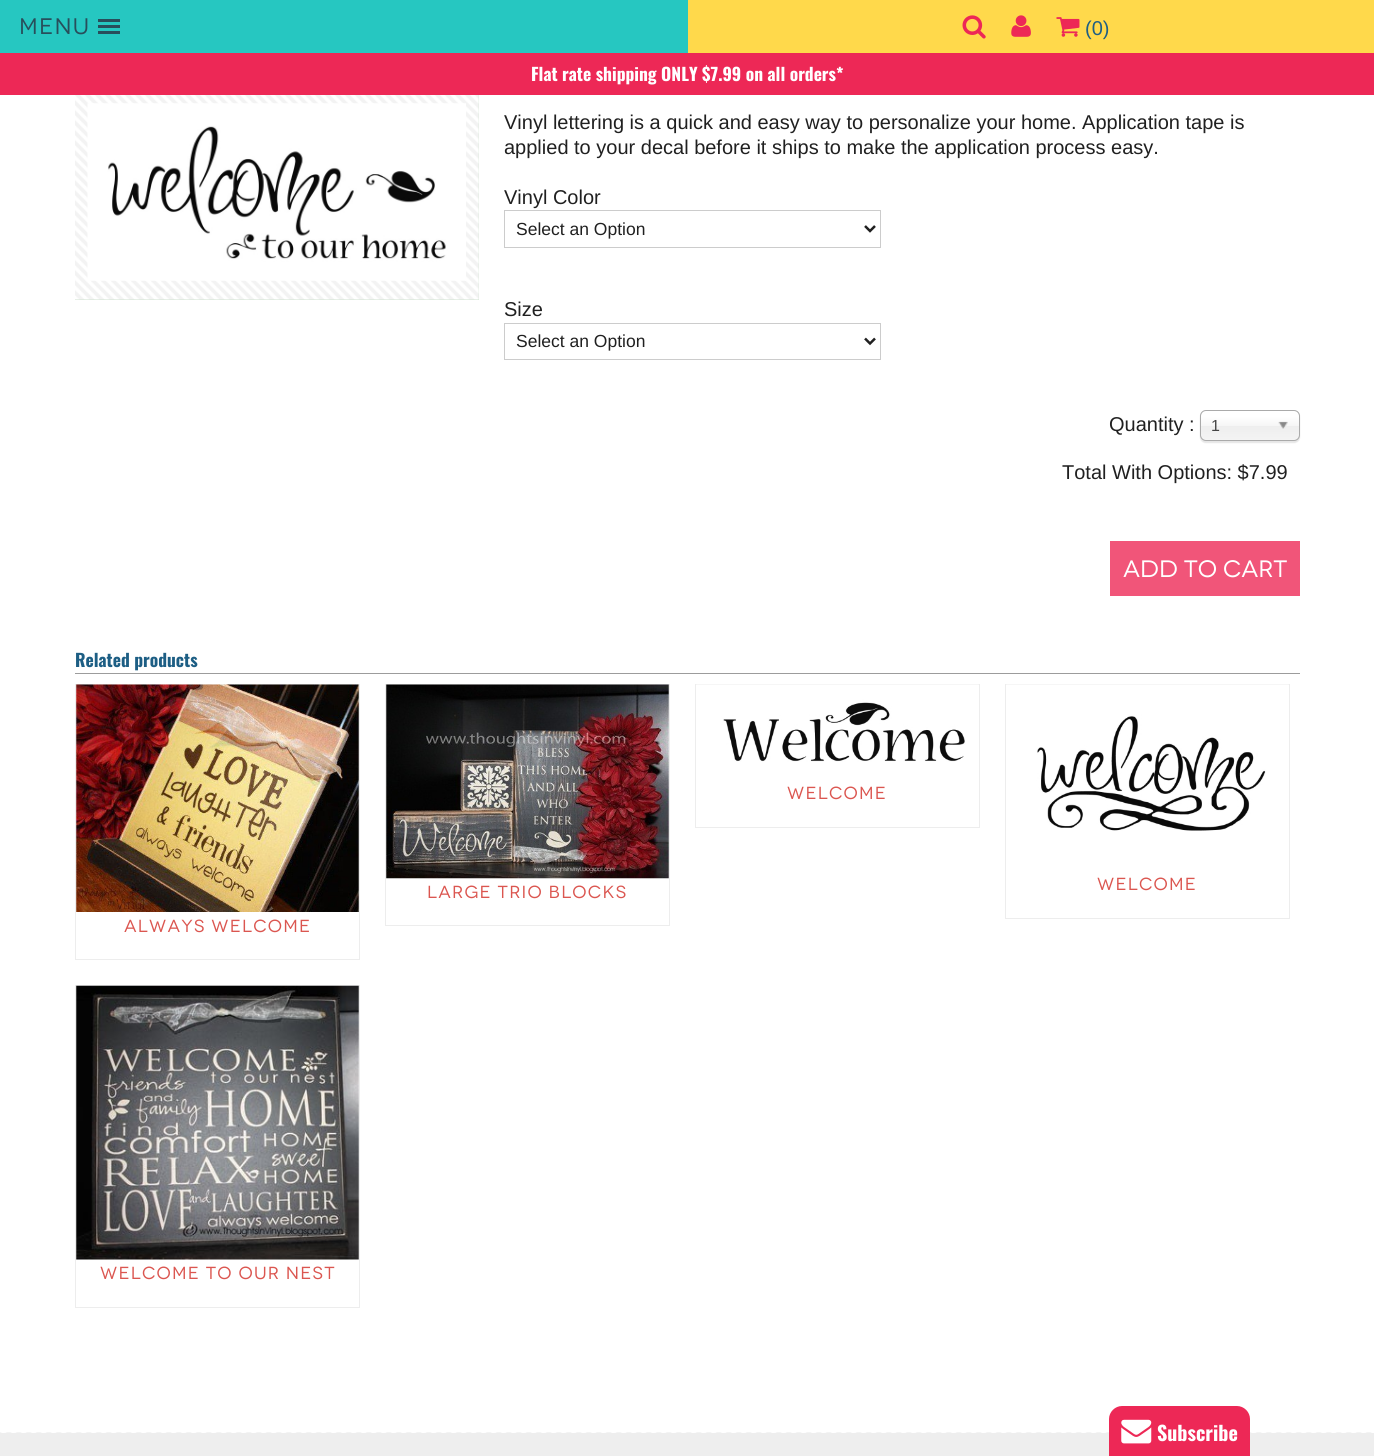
import math
import cairo

surface = cairo.ImageSurface(cairo.FORMAT_RGB24, 1374, 1456)
ctx = cairo.Context(surface)
options = cairo.FontOptions()
options.set_hint_metrics(cairo.HINT_METRICS_OFF)
options.set_hint_style(cairo.HINT_STYLE_NONE)
ctx.set_font_options(options)
ctx.set_miter_limit(4)


def set_color(code):
    ctx.set_source_rgb(*(v / 255 for v in bytes.fromhex(code[-6:])))


def draw_text(x, y, s, family, size, color, bold=False, italic=False):
    ctx.select_font_face(family, cairo.FONT_SLANT_ITALIC if italic else cairo.FONT_SLANT_NORMAL, cairo.FONT_WEIGHT_BOLD if bold else cairo.FONT_WEIGHT_NORMAL)
    ctx.set_font_size(size)
    set_color(color)
    ctx.move_to(x, y)
    ctx.show_text(s)


def draw_spaced(x, y, s, letter, word):
    ctx.move_to(x, y)
    for ch in s:
        ctx.show_text(ch)
        ctx.rel_move_to(letter + word * (ch == ' '), 0)


def fill_rect(x, y, w, h, color):
    set_color(color)
    ctx.rectangle(x, y, w, h)
    ctx.fill()


def rounded_rect(x, y, w, h, r):
    ctx.new_sub_path()
    for i, (u, v) in enumerate([(x + w - r, y + h - r), (x + r, y + h - r), (x + r, y + r), (x + w - r, y + r)]):
        ctx.arc(u, v, r, i * math.pi / 2, (i + 1) * math.pi / 2)
    ctx.close_path()


def draw_shadow(x, y, w, h, r, blur, alpha):
    ctx.push_group_with_content(cairo.CONTENT_ALPHA)
    ctx.set_operator(cairo.OPERATOR_SOURCE)
    for i in range(15, -16, -2):
        e = blur * i / 6
        if min(w, h) + 2 * e > 0:
            ctx.set_source_rgba(0, 0, 0, alpha * math.erfc((i - 1) / 8.5) / 2)
            rounded_rect(x - e, y - e, w + 2 * e, h + 2 * e, max(0, min(r + e + blur * .6, min(w, h) / 2 + e)))
            ctx.fill()
    ctx.mask(ctx.pop_group())


def draw_image(path, x, y, w, h):
    ctx.save()
    ctx.set_source_surface(cairo.ImageSurface.create_from_png(path), x, y)
    ctx.rectangle(x, y, w, h)
    ctx.fill()
    ctx.restore()


set_color("#ffffff")
ctx.paint()
fill_rect(0, 0, 688, 53, "#26c7c1")
ctx.select_font_face("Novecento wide")
ctx.set_font_size(22.5)
set_color("#284e5b")
draw_spaced(19, 34, "MENU", 1.25, 0)
fill_rect(98, 25, 22, 3, "#284e5b")
fill_rect(98, 19, 22, 3, "#284e5b")
fill_rect(98, 31, 22, 3, "#284e5b")
fill_rect(688, 0, 686, 53, "#ffd94b")
draw_image("assets/img1.png", 962, 15, 24, 24)
draw_image("assets/img2.png", 1011, 15, 20, 22)
draw_image("assets/img3.png", 1056, 17, 24, 20)
draw_text(1085, 35, "(0)", "Liberation Sans", 20, "#1d5e84")
fill_rect(0, 53, 1374, 42, "#ed2856")
draw_text(531, 81, "Flat rate shipping ONLY $7.99 on all orders*", "Oswald", 17.5, "#ffffff", bold=True)
fill_rect(75, 95, 404, 205, "#cee1ce")
draw_image("assets/img4.png", 75, 95, 404, 205)
draw_image("assets/img5.png", 87, 103, 379, 178)
draw_text(504, 129, "Vinyl lettering is a quick and easy way to personalize your home. Application tape is", "Liberation Sans", 20, "#202020")
draw_text(504, 154, "applied to your decal before it ships to make the application process easy.", "Liberation Sans", 20, "#202020")
draw_text(504, 204, "Vinyl Color", "Liberation Sans", 20, "#202020")
ctx.rectangle(504.5, 210.5, 376, 37)
set_color("#cccccc")
ctx.set_line_width(1)
ctx.stroke()
ctx.new_path()
ctx.move_to(865, 226)
ctx.line_to(870, 231)
ctx.line_to(875, 226)
set_color("#202020")
ctx.set_line_width(2.5)
ctx.stroke()
draw_text(516, 235, "Select an Option", "Liberation Sans", 17.5, "#202020")
draw_text(504, 316, "Size", "Liberation Sans", 20, "#202020")
ctx.rectangle(504.5, 323.5, 376, 36)
set_color("#cccccc")
ctx.set_line_width(1)
ctx.stroke()
ctx.new_path()
ctx.move_to(865, 338.5)
ctx.line_to(870, 343.5)
ctx.line_to(875, 338.5)
set_color("#202020")
ctx.set_line_width(2.5)
ctx.stroke()
draw_text(516, 347, "Select an Option", "Liberation Sans", 17.5, "#202020")
draw_text(1109, 431, "Quantity :", "Liberation Sans", 20, "#202020")
set_color("#000000")
draw_shadow(1200, 411, 100, 32, 6, 0.5, 0.1)
gradient = cairo.LinearGradient(1250, 411, 1250, 440)
gradient.add_color_stop_rgba(0.2, 1, 1, 1, 1)
gradient.add_color_stop_rgba(0.5, 0.965, 0.965, 0.965, 1)
gradient.add_color_stop_rgba(0.52, 0.933, 0.933, 0.933, 1)
gradient.add_color_stop_rgba(1, 0.957, 0.957, 0.957, 1)
ctx.set_source(gradient)
rounded_rect(1201, 411, 98, 29, 5)
ctx.fill()
rounded_rect(1200.5, 410.5, 99, 30, 5.5)
set_color("#aaaaaa")
ctx.set_line_width(1)
ctx.stroke()
draw_text(1211, 431, "1", "Liberation Sans", 16, "#444444")
draw_image("assets/img6.png", 1278, 421, 10, 8)
draw_text(1062, 479, "Total With Options: $7.99", "Liberation Sans", 20, "#202020")
fill_rect(1110, 541, 190, 55, "#f15579")
draw_text(1123, 577, "Add to Cart", "Novecento wide", 23.75, "#ffffff")
fill_rect(75, 673, 1225, 1, "#9c9c9c")
draw_text(75, 667, "Related products", "Oswald", 17.5, "#1d5e84", bold=True)
ctx.rectangle(695.5, 684.5, 284, 143)
set_color("#ededed")
ctx.stroke()
draw_image("assets/img7.png", 696, 684, 283, 78)
ctx.select_font_face("Novecento wide")
set_color("#db5650")
draw_spaced(787, 799, "Welcome", 1.25, 0)
ctx.rectangle(385.5, 684.5, 284, 241)
set_color("#ededed")
ctx.stroke()
draw_image("assets/img8.png", 386, 684, 283, 195)
set_color("#db5650")
draw_spaced(427, 898, "Large Trio Blocks", 1.25, 0)
ctx.rectangle(1005.5, 684.5, 284, 234)
set_color("#ededed")
ctx.stroke()
draw_image("assets/img9.png", 1006, 684, 283, 147)
set_color("#db5650")
draw_spaced(1097, 890, "Welcome", 1.25, 0)
ctx.rectangle(75.5, 684.5, 284, 275)
set_color("#ededed")
ctx.stroke()
draw_image("assets/img10.png", 76, 684, 283, 228)
set_color("#db5650")
draw_spaced(124, 932, "Always Welcome", 1.25, 0)
ctx.rectangle(75.5, 985.5, 284, 322)
set_color("#ededed")
ctx.stroke()
draw_image("assets/img11.png", 76, 985, 283, 275)
set_color("#db5650")
draw_spaced(100, 1279, "Welcome to our Nest", 1.25, 0)
draw_image("assets/img12.png", 0, 1432, 1374, 1)
fill_rect(0, 1433, 1374, 23, "#eeeeee")
set_color("#ed2856")
ctx.new_path()
ctx.move_to(1122, 1406)
ctx.line_to(1237, 1406)
ctx.curve_to(1244, 1406, 1250, 1412, 1250, 1419)
ctx.line_to(1250, 1456)
ctx.line_to(1109, 1456)
ctx.line_to(1109, 1419)
ctx.curve_to(1109, 1412, 1115, 1406, 1122, 1406)
ctx.close_path()
ctx.fill()
draw_image("assets/img13.png", 1121, 1419, 31, 25)
draw_text(1157, 1441, "Subscribe", "Oswald", 20, "#ffffff", bold=True)
surface.write_to_png("output.png")
